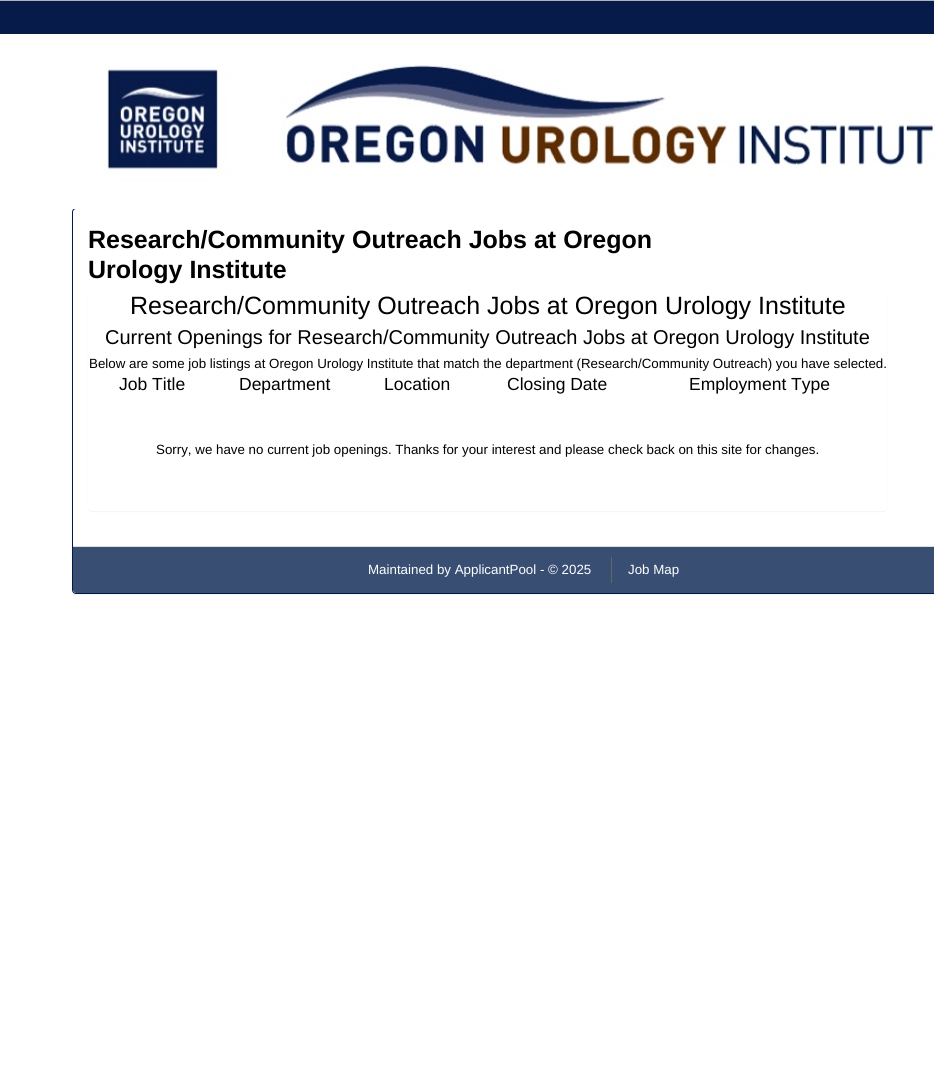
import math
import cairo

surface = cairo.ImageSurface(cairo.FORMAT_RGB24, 934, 1072)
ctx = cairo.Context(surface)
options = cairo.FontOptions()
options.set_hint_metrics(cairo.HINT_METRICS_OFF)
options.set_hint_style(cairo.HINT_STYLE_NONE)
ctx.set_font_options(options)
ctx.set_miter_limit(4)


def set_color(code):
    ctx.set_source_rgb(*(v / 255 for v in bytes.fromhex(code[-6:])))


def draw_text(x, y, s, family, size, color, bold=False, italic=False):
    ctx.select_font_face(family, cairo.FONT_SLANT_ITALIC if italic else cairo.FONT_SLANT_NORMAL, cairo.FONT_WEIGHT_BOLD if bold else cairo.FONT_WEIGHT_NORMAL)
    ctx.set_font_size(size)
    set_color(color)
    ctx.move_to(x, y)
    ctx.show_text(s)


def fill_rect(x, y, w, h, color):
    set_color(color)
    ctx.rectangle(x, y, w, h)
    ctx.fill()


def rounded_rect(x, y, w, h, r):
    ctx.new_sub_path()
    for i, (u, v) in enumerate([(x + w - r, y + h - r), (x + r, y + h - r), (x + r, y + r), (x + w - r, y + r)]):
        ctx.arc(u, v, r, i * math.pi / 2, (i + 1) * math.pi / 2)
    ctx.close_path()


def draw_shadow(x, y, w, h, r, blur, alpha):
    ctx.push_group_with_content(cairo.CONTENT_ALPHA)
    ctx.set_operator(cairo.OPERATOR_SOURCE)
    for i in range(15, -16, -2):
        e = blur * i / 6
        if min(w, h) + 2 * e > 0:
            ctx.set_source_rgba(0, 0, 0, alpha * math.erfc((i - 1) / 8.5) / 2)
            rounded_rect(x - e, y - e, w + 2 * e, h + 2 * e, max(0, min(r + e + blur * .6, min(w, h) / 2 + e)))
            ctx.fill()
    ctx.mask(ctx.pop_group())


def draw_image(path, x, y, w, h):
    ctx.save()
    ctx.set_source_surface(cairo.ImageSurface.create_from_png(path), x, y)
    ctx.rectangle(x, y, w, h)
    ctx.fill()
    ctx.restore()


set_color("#ffffff")
ctx.paint()
draw_image("assets/img1.png", 0, 0, 934, 1072)
set_color("#000000")
draw_shadow(72, 209, 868, 386, 4, 0.5, 0.05)
set_color("#ffffff")
rounded_rect(72.5, 208.5, 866, 385, 3.5)
ctx.fill_preserve()
set_color("#001b4a")
ctx.set_line_width(1)
ctx.stroke()
draw_image("assets/img2.png", 72, 0, 862, 209)
draw_text(88, 248, "Research/Community Outreach Jobs at Oregon", "Liberation Sans", 25, "#000000", bold=True)
draw_text(88, 278, "Urology Institute", "Liberation Sans", 25, "#000000", bold=True)
set_color("#000000")
draw_shadow(88, 290, 799, 222, 4, 0.5, 0.05)
set_color("#ffffff")
rounded_rect(88, 289, 799, 222, 4)
ctx.fill()
draw_text(130, 314, "Research/Community Outreach Jobs at Oregon Urology Institute", "Liberation Sans", 25, "#000000")
draw_text(105, 344, "Current Openings for Research/Community Outreach Jobs at Oregon Urology Institute", "Liberation Sans", 20, "#000000")
draw_text(89, 368, "Below are some job listings at Oregon Urology Institute that match the department (Research/Community Outreach) you have selected.", "Liberation Sans", 13.33, "#000000")
draw_text(119, 390, "Job Title", "Liberation Sans", 17.5, "#000000")
draw_text(239, 390, "Department", "Liberation Sans", 17.5, "#000000")
draw_text(384, 390, "Location", "Liberation Sans", 17.5, "#000000")
draw_text(507, 390, "Closing Date", "Liberation Sans", 17.5, "#000000")
draw_text(689, 390, "Employment Type", "Liberation Sans", 17.5, "#000000")
draw_text(156, 454, "Sorry, we have no current job openings. Thanks for your interest and please check back on this site for changes.", "Liberation Sans", 13.33, "#000000")
set_color("#384e73")
ctx.new_path()
ctx.move_to(73, 546)
ctx.line_to(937, 546)
ctx.line_to(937, 590)
ctx.curve_to(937, 591.5, 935.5, 593, 934, 593)
ctx.line_to(76, 593)
ctx.curve_to(74.5, 593, 73, 591.5, 73, 590)
ctx.close_path()
ctx.fill()
fill_rect(73, 546, 861, 1, "#dddddd")
draw_text(368, 574, "Maintained by ApplicantPool - © 2025", "Liberation Sans", 13.33, "#ffffff")
fill_rect(611, 557, 1, 26, "#666666")
draw_text(628, 574, "Job Map", "Liberation Sans", 13.33, "#ffffff")
surface.write_to_png("output.png")
